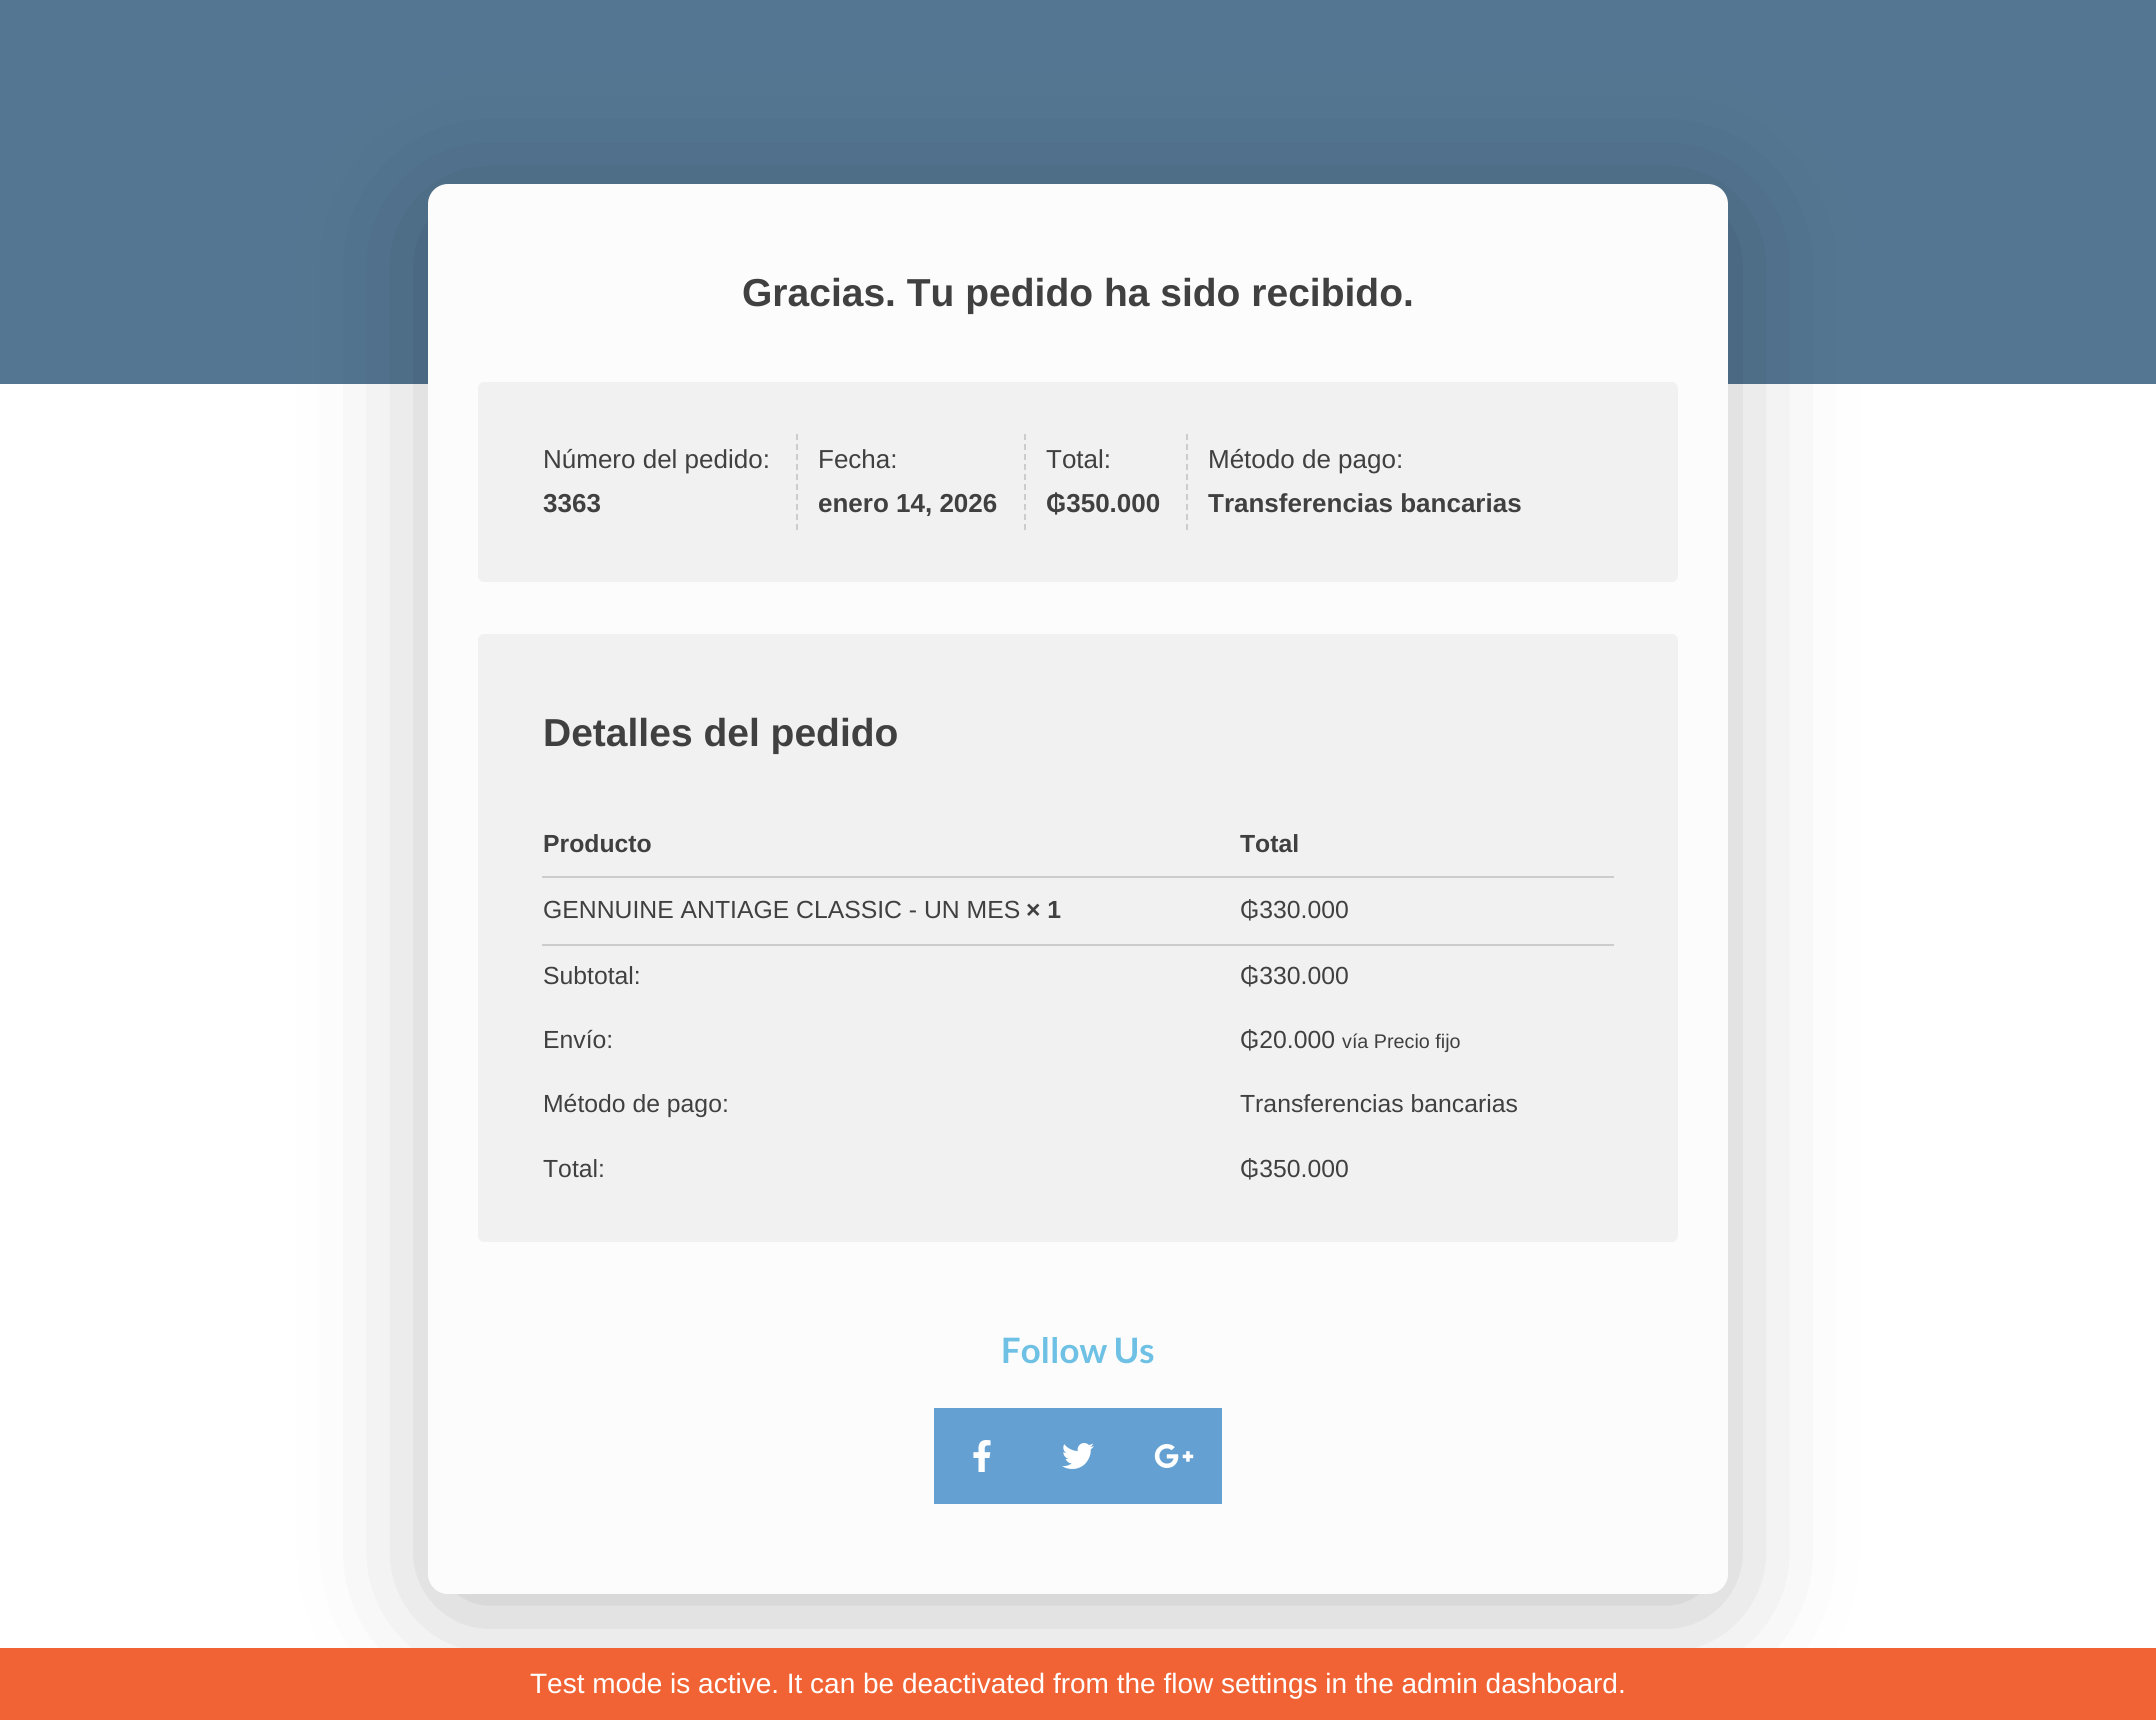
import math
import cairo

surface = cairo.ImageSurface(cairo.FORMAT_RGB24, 2156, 1720)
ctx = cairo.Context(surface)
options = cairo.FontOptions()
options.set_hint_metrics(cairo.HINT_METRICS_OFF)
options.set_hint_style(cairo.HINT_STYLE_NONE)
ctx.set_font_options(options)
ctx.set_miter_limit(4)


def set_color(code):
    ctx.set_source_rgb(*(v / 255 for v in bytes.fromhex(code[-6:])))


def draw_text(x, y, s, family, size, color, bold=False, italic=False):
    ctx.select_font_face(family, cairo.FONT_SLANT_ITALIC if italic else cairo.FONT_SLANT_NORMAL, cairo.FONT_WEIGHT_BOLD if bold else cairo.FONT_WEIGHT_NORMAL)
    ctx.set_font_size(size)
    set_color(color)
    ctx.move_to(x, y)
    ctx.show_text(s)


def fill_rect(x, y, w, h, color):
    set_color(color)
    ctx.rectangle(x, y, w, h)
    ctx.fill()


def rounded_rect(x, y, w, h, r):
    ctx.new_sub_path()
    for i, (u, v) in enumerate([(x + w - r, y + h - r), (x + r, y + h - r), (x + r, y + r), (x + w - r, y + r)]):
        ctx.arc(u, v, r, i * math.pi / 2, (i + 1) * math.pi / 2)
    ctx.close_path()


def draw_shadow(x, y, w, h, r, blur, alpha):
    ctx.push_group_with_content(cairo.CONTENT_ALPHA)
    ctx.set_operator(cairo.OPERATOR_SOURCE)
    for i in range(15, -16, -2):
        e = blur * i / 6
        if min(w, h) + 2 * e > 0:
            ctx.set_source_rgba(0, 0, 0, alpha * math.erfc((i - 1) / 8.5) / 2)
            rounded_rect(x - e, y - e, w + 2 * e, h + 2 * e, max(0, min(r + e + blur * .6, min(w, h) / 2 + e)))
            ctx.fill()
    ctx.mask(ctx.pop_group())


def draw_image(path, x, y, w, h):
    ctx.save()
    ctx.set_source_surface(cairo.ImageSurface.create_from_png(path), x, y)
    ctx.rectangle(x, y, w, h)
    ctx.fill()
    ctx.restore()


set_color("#ffffff")
ctx.paint()
fill_rect(0, 0, 2156, 384, "#547692")
set_color("#000000")
draw_shadow(448, 224, 1260, 1370, 0, 70, 0.3)
set_color("#fcfcfc")
rounded_rect(428, 184, 1300, 1410, 20)
ctx.fill()
draw_text(742, 306, "Gracias. Tu pedido ha sido recibido.", "Liberation Sans", 39, "#404040", bold=True)
set_color("#f1f1f1")
rounded_rect(478, 382, 1200, 200, 6)
ctx.fill()
ctx.new_path()
ctx.move_to(797, 434)
ctx.line_to(797, 530)
set_color("#cccccc")
ctx.set_dash([6, 4])
ctx.stroke()
draw_text(543, 468, "Número del pedido:", "Liberation Sans", 26, "#404040")
draw_text(543, 512, "3363", "Liberation Sans", 26, "#404040", bold=True)
ctx.new_path()
ctx.move_to(1025, 434)
ctx.line_to(1025, 530)
set_color("#cccccc")
ctx.stroke()
draw_text(818, 468, "Fecha:", "Liberation Sans", 26, "#404040")
draw_text(818, 512, "enero 14, 2026", "Liberation Sans", 26, "#404040", bold=True)
ctx.new_path()
ctx.move_to(1187, 434)
ctx.line_to(1187, 530)
set_color("#cccccc")
ctx.stroke()
draw_text(1046, 468, "Total:", "Liberation Sans", 26, "#404040")
draw_text(1046, 512, "₲350.000", "Liberation Sans", 26, "#404040", bold=True)
draw_text(1208, 468, "Método de pago:", "Liberation Sans", 26, "#404040")
draw_text(1208, 512, "Transferencias bancarias", "Liberation Sans", 26, "#404040", bold=True)
set_color("#f1f1f1")
rounded_rect(478, 634, 1200, 608, 6)
ctx.fill()
draw_text(543, 746, "Detalles del pedido", "Liberation Sans", 39, "#404040", bold=True)
draw_text(543, 852, "Producto", "Liberation Sans", 24.75, "#404040", bold=True)
draw_text(1240, 852, "Total", "Liberation Sans", 24.75, "#404040", bold=True)
fill_rect(542, 876, 1072, 2, "#cccccc")
fill_rect(542, 944, 1072, 2, "#cccccc")
draw_text(543, 918, "GENNUINE ANTIAGE CLASSIC - UN MES", "Liberation Sans", 24.75, "#404040")
draw_text(1026, 918, "× 1", "Liberation Sans", 24.75, "#404040", bold=True)
draw_text(1240, 918, "₲330.000", "Liberation Sans", 24.75, "#404040")
draw_text(543, 984, "Subtotal:", "Liberation Sans", 24.75, "#404040")
draw_text(1240, 984, "₲330.000", "Liberation Sans", 24.75, "#404040")
draw_text(543, 1048, "Envío:", "Liberation Sans", 24.75, "#404040")
draw_text(1240, 1048, "₲20.000", "Liberation Sans", 24.75, "#404040")
draw_text(1342, 1048, "vía Precio fijo", "Liberation Sans", 19.75, "#404040")
draw_text(543, 1112, "Método de pago:", "Liberation Sans", 24.75, "#404040")
draw_text(1240, 1112, "Transferencias bancarias", "Liberation Sans", 24.75, "#404040")
draw_text(543, 1177, "Total:", "Liberation Sans", 24.75, "#404040")
draw_text(1240, 1177, "₲350.000", "Liberation Sans", 24.75, "#404040")
draw_text(1001, 1363, "Follow Us", "Lato", 35, "#6ec1e4", bold=True)
fill_rect(934, 1408, 288, 96, "#64a0d1")
draw_image("assets/img1.png", 973, 1440, 18, 32)
draw_image("assets/img2.png", 1062, 1443, 32, 26)
draw_image("assets/img3.png", 1154, 1444, 40, 24)
fill_rect(0, 1648, 2156, 72, "#f16334")
draw_text(530, 1693, "Test mode is active. It can be deactivated from the flow settings in the admin dashboard.", "Liberation Sans", 28, "#ffffff")
surface.write_to_png("output.png")
